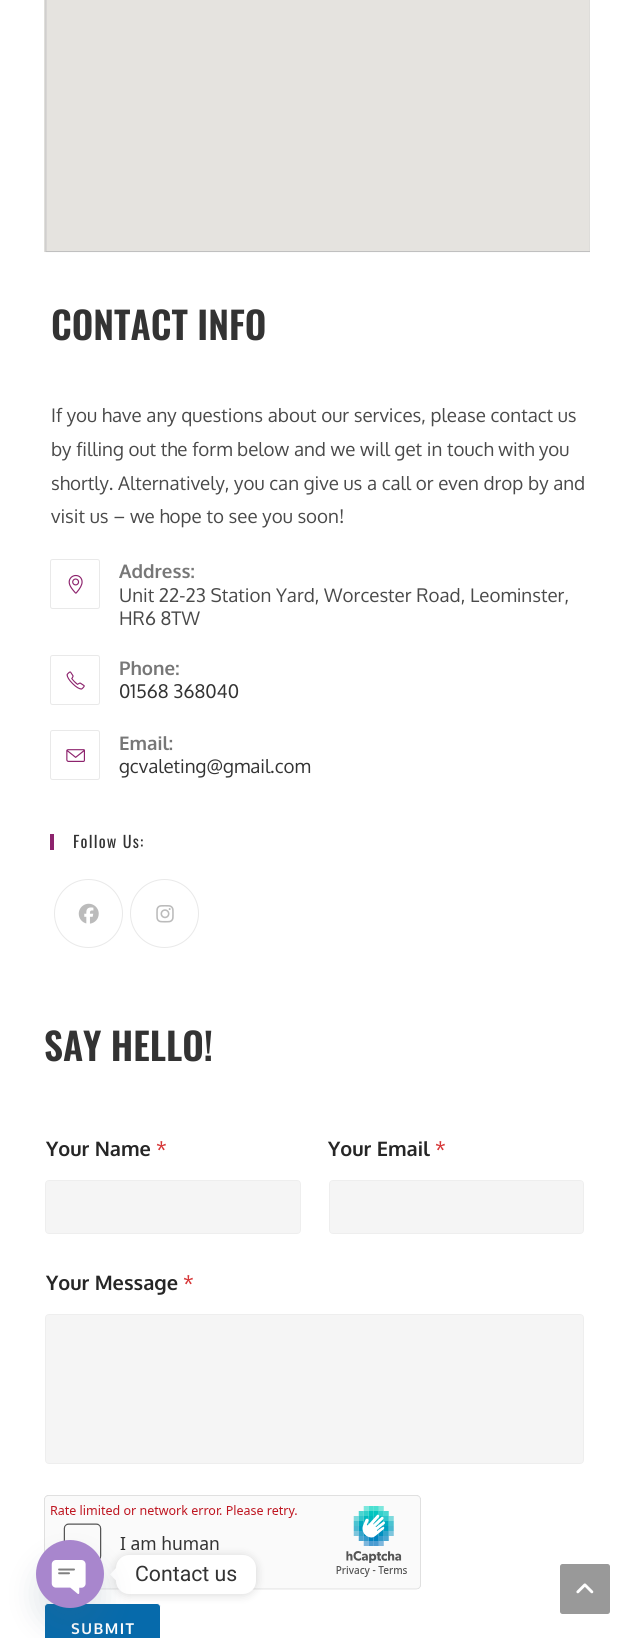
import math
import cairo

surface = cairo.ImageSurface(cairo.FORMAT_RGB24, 635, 1638)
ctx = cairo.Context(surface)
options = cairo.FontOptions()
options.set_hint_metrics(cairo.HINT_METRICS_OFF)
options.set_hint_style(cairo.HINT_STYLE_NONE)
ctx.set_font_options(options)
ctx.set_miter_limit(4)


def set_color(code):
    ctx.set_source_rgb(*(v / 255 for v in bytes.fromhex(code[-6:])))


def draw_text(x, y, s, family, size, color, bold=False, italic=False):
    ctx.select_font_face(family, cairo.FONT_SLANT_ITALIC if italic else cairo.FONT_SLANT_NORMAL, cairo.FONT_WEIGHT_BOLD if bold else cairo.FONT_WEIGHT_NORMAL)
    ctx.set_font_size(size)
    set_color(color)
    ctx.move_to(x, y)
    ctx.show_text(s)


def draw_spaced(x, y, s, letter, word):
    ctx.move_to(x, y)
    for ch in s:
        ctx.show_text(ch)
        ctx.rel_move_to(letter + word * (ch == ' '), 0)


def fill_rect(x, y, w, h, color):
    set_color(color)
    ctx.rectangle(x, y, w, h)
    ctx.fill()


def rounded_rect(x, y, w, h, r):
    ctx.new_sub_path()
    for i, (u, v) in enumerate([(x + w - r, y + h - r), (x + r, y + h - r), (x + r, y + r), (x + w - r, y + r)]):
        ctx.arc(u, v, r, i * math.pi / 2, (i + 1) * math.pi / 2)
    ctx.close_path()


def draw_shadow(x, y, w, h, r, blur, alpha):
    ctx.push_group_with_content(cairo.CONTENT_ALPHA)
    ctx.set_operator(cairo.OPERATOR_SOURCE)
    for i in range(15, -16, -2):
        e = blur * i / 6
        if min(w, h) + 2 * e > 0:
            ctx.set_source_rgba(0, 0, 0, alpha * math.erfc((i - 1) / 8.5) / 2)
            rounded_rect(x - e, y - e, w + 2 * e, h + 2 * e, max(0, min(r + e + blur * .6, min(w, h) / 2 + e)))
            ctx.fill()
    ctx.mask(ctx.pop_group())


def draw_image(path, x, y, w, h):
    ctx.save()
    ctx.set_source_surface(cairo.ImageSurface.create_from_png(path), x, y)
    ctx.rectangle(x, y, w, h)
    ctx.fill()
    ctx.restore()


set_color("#ffffff")
ctx.paint()
draw_image("assets/img1.png", 44, 0, 546, 253)
draw_text(51, 340, "CONTACT INFO", "Oswald SemiBold", 37.5, "#333333")
draw_text(51, 422, "If you have any questions about our services, please contact us", "Oxygen", 18.75, "#4a4a4a")
draw_text(51, 456, "by filling out the form below and we will get in touch with you", "Oxygen", 18.75, "#4a4a4a")
draw_text(51, 490, "shortly. Alternatively, you can give us a call or even drop by and", "Oxygen", 18.75, "#4a4a4a")
draw_text(51, 523, "visit us – we hope to see you soon!", "Oxygen", 18.75, "#4a4a4a")
rounded_rect(50.5, 559.5, 49, 49, 2)
set_color("#e9e9e9")
ctx.set_line_width(1)
ctx.stroke()
draw_image("assets/img2.png", 68, 574, 15, 20)
draw_text(119, 578, "Address:", "Oxygen", 18.75, "#777777", bold=True)
draw_text(119, 602, "Unit 22-23 Station Yard, Worcester Road, Leominster,", "Oxygen", 18.75, "#4a4a4a")
draw_text(119, 625, "HR6 8TW", "Oxygen", 18.75, "#4a4a4a")
rounded_rect(50.5, 655.5, 49, 49, 2)
set_color("#e9e9e9")
ctx.stroke()
draw_image("assets/img3.png", 66, 671, 19, 19)
draw_text(119, 675, "Phone:", "Oxygen", 18.75, "#777777", bold=True)
draw_text(119, 698, "01568 368040", "Oxygen", 18.75, "#333333")
rounded_rect(50.5, 730.5, 49, 49, 2)
set_color("#e9e9e9")
ctx.stroke()
draw_image("assets/img4.png", 66, 749, 19, 13)
draw_text(119, 750, "Email:", "Oxygen", 18.75, "#777777", bold=True)
draw_text(119, 773, "gcvaleting@gmail.com", "Oxygen", 18.75, "#333333")
fill_rect(50, 834, 4, 16, "#8d236d")
ctx.select_font_face("Oswald")
ctx.set_font_size(16.25)
set_color("#333333")
draw_spaced(73, 848, "Follow Us:", 1.25, 0)
ctx.new_path()
ctx.arc(88.5, 913.5, 34, 0, 2 * math.pi)
set_color("#e9e9e9")
ctx.stroke()
draw_image("assets/img5.png", 78, 903, 21, 21)
ctx.arc(164.5, 913.5, 34, 0, 2 * math.pi)
ctx.stroke()
draw_image("assets/img6.png", 156, 905, 18, 18)
draw_text(44, 1061, "SAY HELLO!", "Oswald SemiBold", 37.5, "#333333")
draw_text(46, 1156, "Your Name", "Oxygen", 20, "#262626", bold=True)
draw_text(156, 1156, "*", "Oxygen", 20, "#d63637")
set_color("#f5f5f5")
rounded_rect(46, 1181, 254, 52, 2.5)
ctx.fill()
rounded_rect(45.5, 1180.5, 255, 53, 3.5)
set_color("#eeeeee")
ctx.stroke()
draw_text(328, 1156, "Your Email", "Oxygen", 20, "#262626", bold=True)
draw_text(435, 1156, "*", "Oxygen", 20, "#d63637")
set_color("#f5f5f5")
rounded_rect(330, 1181, 253, 52, 2.5)
ctx.fill()
rounded_rect(329.5, 1180.5, 254, 53, 3.5)
set_color("#eeeeee")
ctx.stroke()
draw_text(46, 1290, "Your Message", "Oxygen", 20, "#262626", bold=True)
draw_text(183, 1290, "*", "Oxygen", 20, "#d63637")
set_color("#f5f5f5")
rounded_rect(46, 1315, 537, 148, 2.5)
ctx.fill()
rounded_rect(45.5, 1314.5, 538, 149, 3.5)
set_color("#eeeeee")
ctx.stroke()
draw_image("assets/img7.png", 44, 1495, 377, 95)
set_color("#066aab")
rounded_rect(44.5, 1603.5, 116, 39, 3.5)
ctx.fill_preserve()
set_color("#ffffff")
ctx.stroke()
ctx.select_font_face("Oxygen", cairo.FONT_SLANT_NORMAL, cairo.FONT_WEIGHT_BOLD)
ctx.set_font_size(15)
draw_spaced(71, 1634, "SUBMIT", 1.5, 0)
set_color("#999999")
rounded_rect(560, 1564, 50, 50, 2.5)
ctx.fill()
draw_image("assets/img8.png", 576, 1583, 18, 11)
set_color("#000000")
draw_shadow(116, 1556, 140, 39, 13, 5, 0.15)
set_color("#ffffff")
rounded_rect(116, 1555, 140, 39, 13)
ctx.fill()
ctx.new_path()
ctx.move_to(116, 1568)
ctx.line_to(116, 1580.5)
ctx.line_to(110, 1574.5)
ctx.close_path()
ctx.fill()
set_color("#49687e")
draw_shadow(36, 1560, 68, 68, 34, 15, 0.16)
draw_image("assets/img9.png", 36, 1540, 68, 68)
draw_text(135, 1581, "Contact us", "Roboto", 21.25, "#333333")
surface.write_to_png("output.png")
